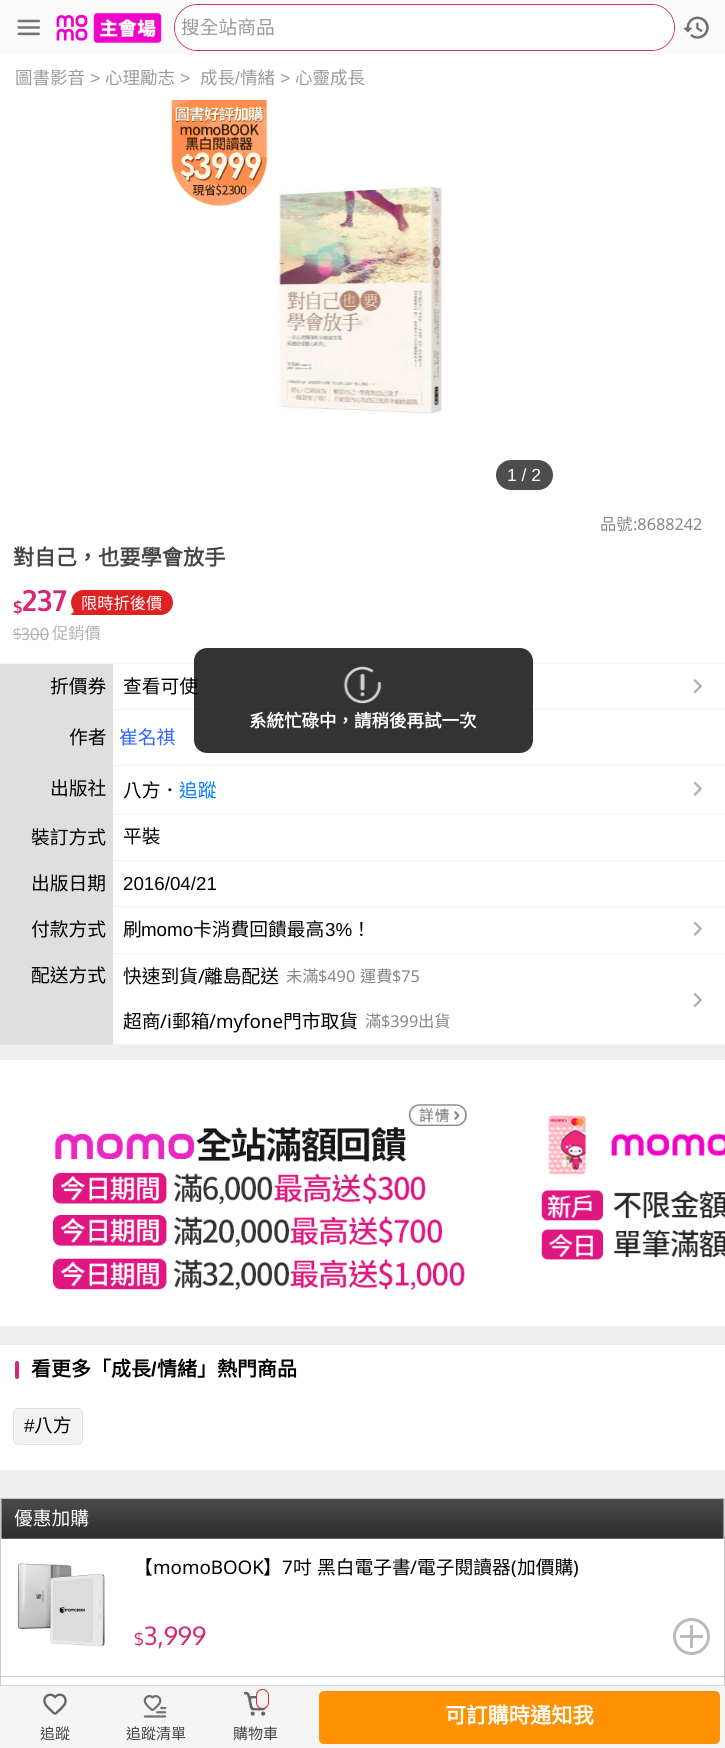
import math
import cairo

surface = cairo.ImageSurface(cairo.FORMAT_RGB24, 725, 1748)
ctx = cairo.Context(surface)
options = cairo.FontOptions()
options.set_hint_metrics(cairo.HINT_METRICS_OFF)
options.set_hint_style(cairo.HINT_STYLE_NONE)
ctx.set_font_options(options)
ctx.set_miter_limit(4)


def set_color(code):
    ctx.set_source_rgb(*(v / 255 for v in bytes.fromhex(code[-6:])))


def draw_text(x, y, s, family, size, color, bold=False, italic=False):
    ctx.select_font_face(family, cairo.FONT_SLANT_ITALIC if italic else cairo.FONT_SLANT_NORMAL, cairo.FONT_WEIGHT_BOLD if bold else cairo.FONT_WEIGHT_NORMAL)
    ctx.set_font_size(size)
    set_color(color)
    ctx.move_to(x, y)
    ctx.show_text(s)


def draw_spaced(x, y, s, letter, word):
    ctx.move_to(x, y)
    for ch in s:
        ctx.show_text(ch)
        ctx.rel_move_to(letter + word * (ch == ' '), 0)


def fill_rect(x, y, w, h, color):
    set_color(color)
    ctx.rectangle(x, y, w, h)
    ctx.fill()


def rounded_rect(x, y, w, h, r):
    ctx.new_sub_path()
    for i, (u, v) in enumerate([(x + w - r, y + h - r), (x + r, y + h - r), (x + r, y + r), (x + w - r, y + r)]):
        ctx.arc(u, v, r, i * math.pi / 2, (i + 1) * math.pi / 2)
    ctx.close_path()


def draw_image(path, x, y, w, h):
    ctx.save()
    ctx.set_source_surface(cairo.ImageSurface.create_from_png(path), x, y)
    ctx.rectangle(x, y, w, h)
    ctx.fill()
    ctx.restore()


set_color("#eeeeee")
ctx.paint()
fill_rect(0, 0, 725, 55, "#fafafa")
draw_image("assets/img1.png", 17, 19, 24, 17)
draw_image("assets/img2.png", 56, 15, 32, 26)
draw_image("assets/img3.png", 93, 13, 69, 30)
rounded_rect(174.5, 4.5, 500, 46, 23)
set_color("#d62872")
ctx.set_line_width(1)
ctx.stroke()
set_color("#ffffff")
rounded_rect(175, 5, 499, 45, 22.5)
ctx.fill()
draw_text(181, 34, "搜全站商品", "Noto Sans CJK TC", 18.75, "#9b9b9b")
draw_image("assets/img4.png", 683, 16, 26, 23)
fill_rect(0, 55, 725, 989, "#ffffff")
draw_text(15, 84, "圖書影音", "Noto Sans CJK TC", 17.5, "#9b9b9b")
draw_text(90, 84, ">", "Liberation Sans", 17.5, "#9b9b9b")
draw_text(105, 84, "心理勵志", "Noto Sans CJK TC", 17.5, "#9b9b9b")
draw_text(180, 84, ">", "Liberation Sans", 17.5, "#9b9b9b")
draw_text(200, 84, "成長", "Noto Sans CJK TC", 17.5, "#9b9b9b")
draw_text(235, 84, "/", "Liberation Sans", 17.5, "#9b9b9b")
draw_text(240, 84, "情緒", "Noto Sans CJK TC", 17.5, "#9b9b9b")
draw_text(280, 84, ">", "Liberation Sans", 17.5, "#9b9b9b")
draw_text(295, 84, "心靈成長", "Noto Sans CJK TC", 17.5, "#9b9b9b")
draw_image("assets/img5.png", 170, 100, 98, 107)
draw_image("assets/img6.png", 273, 185, 171, 230)
set_color("#4d4d4d")
rounded_rect(496, 460, 57, 30, 15)
ctx.fill()
draw_text(507, 481, "1 / 2", "Liberation Sans", 17.5, "#ffffff")
draw_text(600, 530, "品號", "Noto Sans CJK TC", 16.25, "#888888")
draw_text(633, 530, ":8688242", "Noto Sans", 16.25, "#888888")
draw_text(13, 565, "對自己，也要學會放手", "Noto Sans CJK TC", 21.25, "#454545", bold=True)
draw_text(13, 613, "$", "Oxygen", 16.25, "#d62872", bold=True)
draw_text(22, 611, "237", "Oxygen", 29, "#d62872", bold=True)
set_color("#dd2222")
rounded_rect(71, 590, 102, 25, 12.5)
ctx.fill()
draw_text(81, 609, "限時折後價", "Noto Sans CJK TC", 16.25, "#ffffff")
draw_image("assets/img7.png", 71, 610, 12, 5)
draw_text(13, 639, "$", "Oxygen", 14, "#b3b3b3")
fill_rect(13, 634, 8, 1, "#b3b3b3")
draw_text(21, 640, "300", "Oxygen", 16.25, "#b3b3b3")
fill_rect(21, 634, 28, 1, "#b3b3b3")
draw_text(52, 639, "促銷價", "Noto Sans CJK TC", 16.25, "#b3b3b3")
fill_rect(0, 663, 725, 1, "#f2f2f2")
fill_rect(0, 1045, 725, 1, "#f2f2f2")
fill_rect(0, 664, 113, 381, "#dfdfdf")
draw_text(50, 693, "折價券", "Noto Sans CJK TC", 18.75, "#000000")
fill_rect(113, 709, 612, 1, "#f2f2f2")
draw_text(123, 693, "查看可使", "Noto Sans CJK TC", 18.75, "#000000")
draw_image("assets/img8.png", 693, 679, 9, 15)
draw_text(69, 744, "作者", "Noto Sans CJK TC", 18.75, "#000000")
fill_rect(113, 765, 612, 1, "#f2f2f2")
draw_text(119, 744, "崔名祺", "Noto Sans CJK TC", 18.75, "#3366ff")
draw_text(50, 795, "出版社", "Noto Sans CJK TC", 18.75, "#000000")
fill_rect(113, 814, 612, 1, "#f2f2f2")
draw_text(123, 797, "八方．", "Noto Sans CJK TC", 18.75, "#000000")
draw_text(179, 797, "追蹤", "Noto Sans CJK TC", 18.75, "#027bff")
draw_image("assets/img9.png", 693, 781, 9, 15)
draw_text(31, 844, "裝訂方式", "Noto Sans CJK TC", 18.75, "#000000")
fill_rect(113, 860, 612, 1, "#f2f2f2")
draw_text(123, 843, "平裝", "Noto Sans CJK TC", 18.75, "#000000")
draw_text(31, 890, "出版日期", "Noto Sans CJK TC", 18.75, "#000000")
fill_rect(113, 906, 612, 1, "#f2f2f2")
draw_text(123, 890, "2016/04/21", "Liberation Sans", 18.75, "#000000")
draw_text(31, 936, "付款方式", "Noto Sans CJK TC", 18.75, "#000000")
fill_rect(113, 953, 612, 1, "#f2f2f2")
draw_text(123, 936, "刷", "Noto Sans CJK TC", 18.75, "#000000")
draw_text(141, 936, "momo", "Liberation Sans", 18.75, "#000000")
draw_text(193, 936, "卡消費回饋最高", "Noto Sans CJK TC", 18.75, "#000000")
draw_text(325, 936, "3%", "Liberation Sans", 18.75, "#000000")
draw_text(352, 936, "！", "Noto Sans CJK TC", 18.75, "#000000")
draw_image("assets/img9.png", 693, 921, 9, 15)
draw_text(31, 982, "配送方式", "Noto Sans CJK TC", 18.75, "#000000")
fill_rect(113, 1044, 612, 1, "#f2f2f2")
draw_text(123, 983, "快速到貨", "Noto Sans CJK TC", 18.75, "#000000")
draw_text(198, 983, "/", "Noto Sans", 18.75, "#000000")
draw_text(204, 983, "離島配送", "Noto Sans CJK TC", 18.75, "#000000")
draw_text(286, 982, "未滿", "Noto Sans CJK TC", 16.25, "#888888")
draw_text(318, 982, "$490", "Noto Sans", 16.25, "#888888")
draw_text(360, 982, "運費", "Noto Sans CJK TC", 16.25, "#888888")
draw_text(392, 982, "$75", "Noto Sans", 16.25, "#888888")
draw_image("assets/img10.png", 693, 993, 9, 14)
draw_text(123, 1028, "超商", "Noto Sans CJK TC", 18.75, "#000000")
draw_text(160, 1028, "/i", "Noto Sans", 18.75, "#000000")
draw_text(172, 1028, "郵箱", "Noto Sans CJK TC", 18.75, "#000000")
draw_text(209, 1028, "/myfone", "Noto Sans", 18.75, "#000000")
draw_text(283, 1028, "門市取貨", "Noto Sans CJK TC", 18.75, "#000000")
draw_text(365, 1027, "滿", "Noto Sans CJK TC", 16.25, "#888888")
draw_text(381, 1027, "$399", "Noto Sans", 16.25, "#888888")
draw_text(418, 1027, "出貨", "Noto Sans CJK TC", 16.25, "#888888")
ctx.set_source_rgba(0, 0, 0, 0.8)
rounded_rect(194, 648, 339, 105, 13)
ctx.fill()
draw_image("assets/img11.png", 343, 666, 39, 38)
draw_text(249, 727, "系統忙碌中，請稍後再試一次", "Noto Sans CJK TC", 17.5, "#ffffff", bold=True)
fill_rect(0, 1060, 725, 266, "#ffffff")
draw_image("assets/img12.png", 53, 1104, 414, 186)
draw_image("assets/img13.png", 541, 1115, 184, 145)
fill_rect(0, 1345, 725, 125, "#ffffff")
set_color("#d62872")
rounded_rect(15, 1361, 4, 18, 2)
ctx.fill()
draw_text(31, 1376, "看更多「成長", "Noto Sans CJK TC", 20, "#000000", bold=True)
draw_text(151, 1376, "/", "Liberation Sans", 20, "#000000", bold=True)
draw_text(157, 1376, "情緒」熱門商品", "Noto Sans CJK TC", 20, "#000000", bold=True)
set_color("#f2f2f2")
rounded_rect(13.5, 1408.5, 69, 36, 4.5)
ctx.fill_preserve()
set_color("#e1e1e1")
ctx.stroke()
draw_text(24, 1432, "#", "Liberation Sans", 18.75, "#000000")
draw_text(34, 1432, "八方", "Noto Sans CJK TC", 18.75, "#000000")
fill_rect(1, 1499, 723, 186, "#ffffff")
ctx.rectangle(0.5, 1498.5, 724, 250)
set_color("#cccccc")
ctx.stroke()
draw_image("assets/img14.png", 1, 1498, 723, 41)
draw_text(14, 1525, "優惠加購", "Noto Sans CJK TC", 18.75, "#ffffff")
draw_image("assets/img15.png", 17, 1563, 88, 84)
draw_text(134, 1574, "【", "Noto Sans CJK TC", 18.75, "#000000")
draw_text(153, 1574, "momoBOOK", "Noto Sans", 18.75, "#000000")
draw_text(263, 1574, "】", "Noto Sans CJK TC", 18.75, "#000000")
draw_text(282, 1574, "7", "Noto Sans", 18.75, "#000000")
ctx.select_font_face("Noto Sans CJK TC")
draw_spaced(293, 1574, "吋 黑白電子書", 0, 1)
draw_text(410, 1574, "/", "Noto Sans", 18.75, "#000000")
draw_text(417, 1574, "電子閱讀器", "Noto Sans CJK TC", 18.75, "#000000")
draw_text(511, 1574, "(", "Noto Sans", 18.75, "#000000")
draw_text(517, 1574, "加價購", "Noto Sans CJK TC", 18.75, "#000000")
draw_text(573, 1574, ")", "Noto Sans", 18.75, "#000000")
draw_text(134, 1645, "$", "Oxygen", 16.25, "#d62872")
draw_text(144, 1645, "3,999", "Oxygen", 25, "#d62872")
ctx.new_path()
ctx.arc(691.5, 1636.5, 17, 0, 2 * math.pi)
set_color("#bbbbbb")
ctx.set_line_width(3)
ctx.stroke()
fill_rect(680, 1635, 23, 3, "#bbbbbb")
fill_rect(690, 1625, 3, 23, "#bbbbbb")
fill_rect(1, 1676, 723, 1, "#cccccc")
fill_rect(0, 1686, 725, 62, "#f5f5f5")
fill_rect(0, 1685, 725, 1, "#d4d4d4")
set_color("#ff9203")
rounded_rect(319, 1691, 401, 53, 5)
ctx.fill()
draw_text(445, 1723, "可訂購時通知我", "Noto Sans CJK TC", 21.25, "#ffffff", bold=True)
draw_image("assets/img16.png", 43, 1693, 24, 22)
draw_text(40, 1739, "追蹤", "Noto Sans CJK TC", 15, "#454545")
draw_image("assets/img17.png", 143, 1695, 24, 23)
draw_text(126, 1739, "追蹤清單", "Noto Sans CJK TC", 15, "#454545")
draw_image("assets/img18.png", 244, 1691, 23, 25)
set_color("#f2f2f2")
rounded_rect(256.5, 1689.5, 12, 19, 6)
ctx.fill_preserve()
set_color("#dd2726")
ctx.set_line_width(1)
ctx.stroke()
draw_text(233, 1739, "購物車", "Noto Sans CJK TC", 15, "#454545")
surface.write_to_png("output.png")
